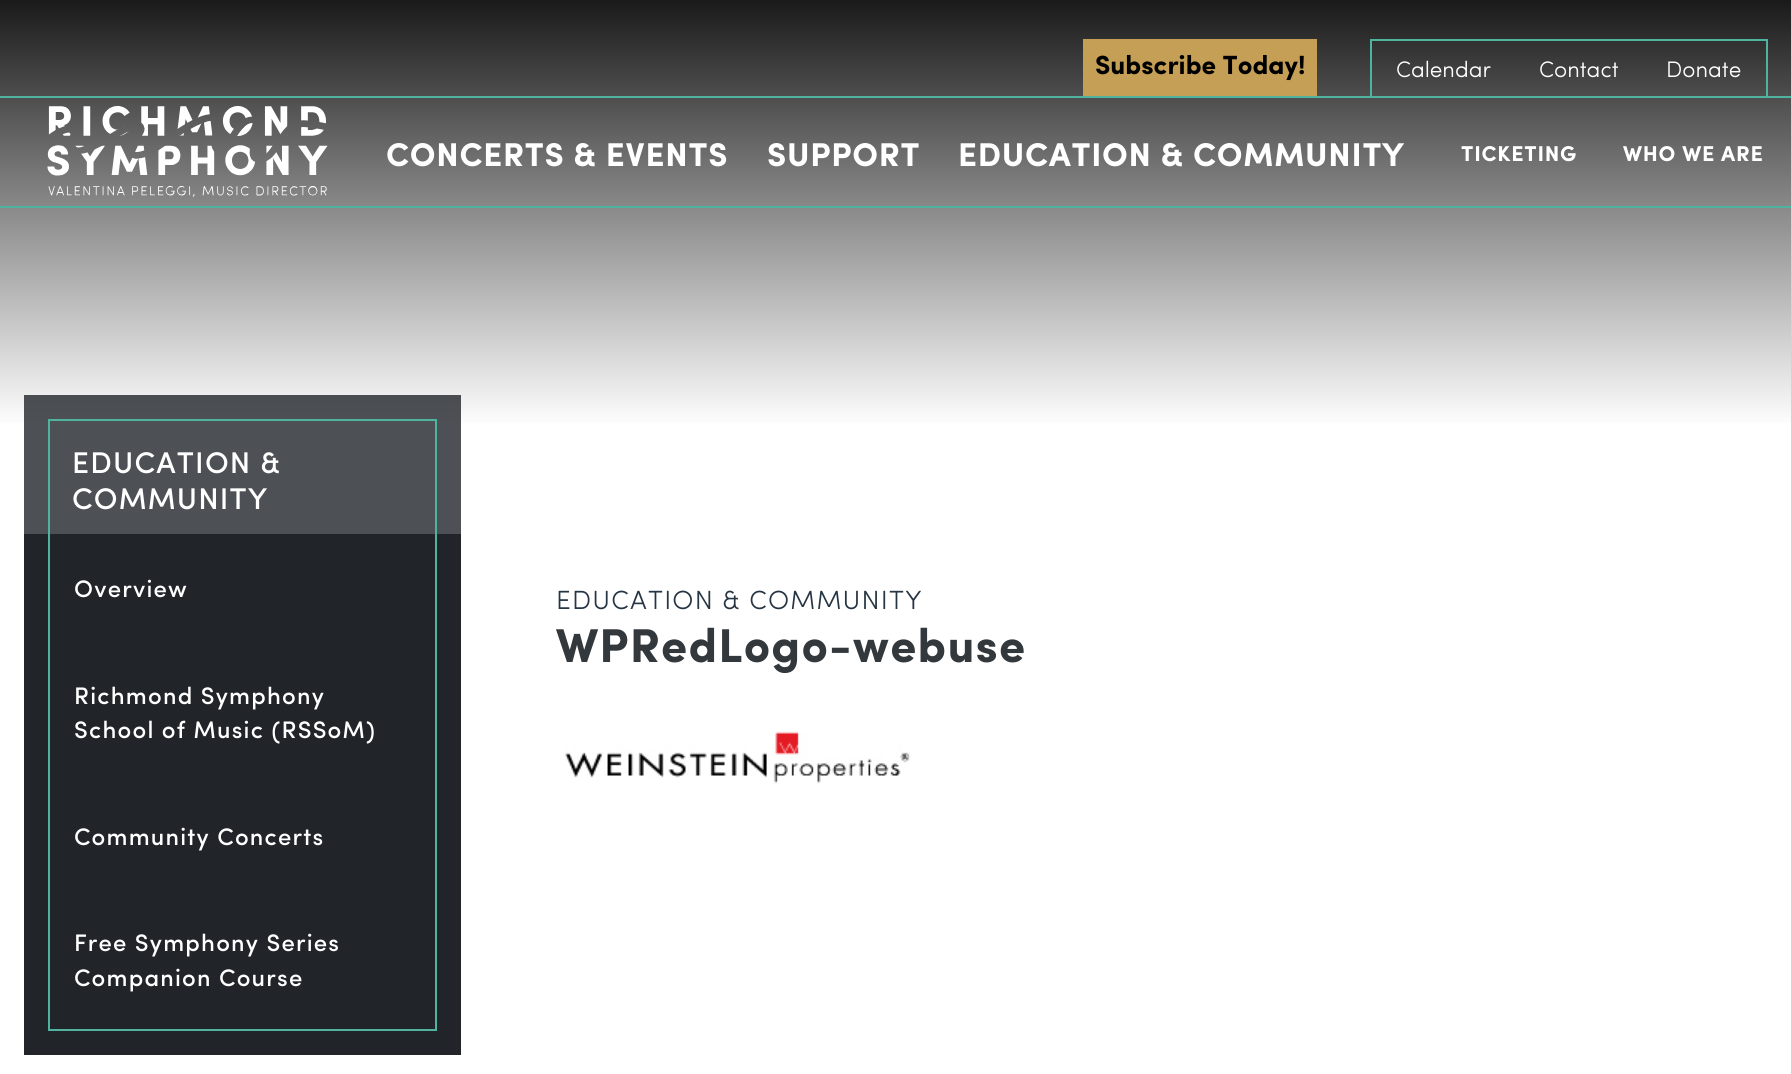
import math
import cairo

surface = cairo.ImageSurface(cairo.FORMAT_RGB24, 1791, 1074)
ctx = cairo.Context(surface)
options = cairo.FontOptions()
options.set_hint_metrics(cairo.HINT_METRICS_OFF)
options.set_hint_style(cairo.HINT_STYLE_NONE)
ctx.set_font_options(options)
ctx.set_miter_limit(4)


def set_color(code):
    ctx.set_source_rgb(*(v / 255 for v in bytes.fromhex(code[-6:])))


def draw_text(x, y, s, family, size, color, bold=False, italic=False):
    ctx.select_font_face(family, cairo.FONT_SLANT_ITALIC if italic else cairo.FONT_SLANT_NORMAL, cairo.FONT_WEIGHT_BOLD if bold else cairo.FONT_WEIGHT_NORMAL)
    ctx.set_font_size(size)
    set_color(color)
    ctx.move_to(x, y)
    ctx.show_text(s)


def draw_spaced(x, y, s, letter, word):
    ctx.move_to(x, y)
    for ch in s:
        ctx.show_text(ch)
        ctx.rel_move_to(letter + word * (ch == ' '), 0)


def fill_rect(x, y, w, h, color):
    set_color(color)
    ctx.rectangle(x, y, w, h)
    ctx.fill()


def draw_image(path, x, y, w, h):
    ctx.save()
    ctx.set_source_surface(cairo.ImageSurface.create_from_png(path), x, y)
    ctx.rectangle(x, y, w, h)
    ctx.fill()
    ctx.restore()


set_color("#ffffff")
ctx.paint()
gradient = cairo.LinearGradient(896, 0, 896, 534)
gradient.add_color_stop_rgba(0, 0.102, 0.102, 0.102, 1)
gradient.add_color_stop_rgba(0.8, 1, 1, 1, 1)
gradient.add_color_stop_rgba(1, 1, 1, 1, 1)
ctx.set_source(gradient)
ctx.rectangle(0, 0, 1791, 423)
ctx.fill()
gradient = cairo.LinearGradient(896, 0, 896, 534)
gradient.add_color_stop_rgba(0, 0.125, 0.137, 0.153, 1)
gradient.add_color_stop_rgba(0.8, 0.302, 0.318, 0.333, 1)
gradient.add_color_stop_rgba(1, 0.302, 0.318, 0.333, 1)
ctx.set_source(gradient)
ctx.rectangle(24, 395, 437, 139)
ctx.fill()
fill_rect(1083, 39, 234, 57, "#c59f55")
draw_text(1095, 74, "Subscribe Today!", "Sofia", 26.4, "#000000", bold=True)
fill_rect(1370, 39, 397, 2, "#4fb49f")
fill_rect(1766, 39, 2, 57, "#4fb49f")
fill_rect(1370, 39, 2, 57, "#4fb49f")
draw_text(1396, 77, "Calendar", "Sofia Light", 22.5, "#ffffff")
draw_text(1539, 77, "Contact", "Sofia Light", 22.5, "#ffffff")
draw_text(1666, 77, "Donate", "Sofia Light", 22.5, "#ffffff")
draw_image("assets/img1.png", 47, 106, 281, 91)
ctx.select_font_face("Sofia", cairo.FONT_SLANT_NORMAL, cairo.FONT_WEIGHT_BOLD)
ctx.set_font_size(33)
draw_spaced(386, 166, "CONCERTS & EVENTS", 0.75, 0)
draw_spaced(767, 166, "SUPPORT", 0.75, 0)
draw_spaced(958, 166, "EDUCATION & COMMUNITY", 0.75, 0)
ctx.set_font_size(21.5)
draw_spaced(1461, 161, "TICKETING", 0.75, 0)
draw_spaced(1623, 161, "WHO WE ARE", 0.75, 0)
fill_rect(0, 96, 1791, 2, "#4fb49f")
fill_rect(0, 206, 1791, 2, "#4fb49f")
fill_rect(48, 419, 389, 2, "#4fb49f")
fill_rect(435, 419, 2, 115, "#4fb49f")
fill_rect(48, 419, 2, 115, "#4fb49f")
ctx.select_font_face("Sofia Medium")
ctx.set_font_size(30)
set_color("#ffffff")
draw_spaced(72, 473, "EDUCATION &", 1.2, 0)
draw_spaced(72, 509, "COMMUNITY", 1.2, 0)
fill_rect(24, 534, 437, 521, "#21252a")
fill_rect(435, 534, 2, 497, "#4fb49f")
fill_rect(48, 1029, 389, 2, "#4fb49f")
fill_rect(48, 534, 2, 497, "#4fb49f")
ctx.set_font_size(24)
set_color("#ffffff")
draw_spaced(74, 597, "Overview", 1.2, 0)
draw_spaced(74, 704, "Richmond Symphony", 1.2, 0)
draw_spaced(74, 738, "School of Music (RSSoM)", 1.2, 0)
draw_spaced(74, 845, "Community Concerts", 1.2, 0)
draw_spaced(74, 951, "Free Symphony Series", 1.2, 0)
draw_spaced(74, 986, "Companion Course", 1.2, 0)
ctx.select_font_face("Sofia Light")
ctx.set_font_size(26.4)
set_color("#273543")
draw_spaced(556, 609, "EDUCATION & COMMUNITY", 1.2, 0)
ctx.select_font_face("Sofia", cairo.FONT_SLANT_NORMAL, cairo.FONT_WEIGHT_BOLD)
ctx.set_font_size(47.5)
set_color("#33383d")
draw_spaced(556, 662, "WPRedLogo-webuse", 1.2, 0)
draw_image("assets/img2.png", 565, 731, 345, 53)
surface.write_to_png("output.png")
